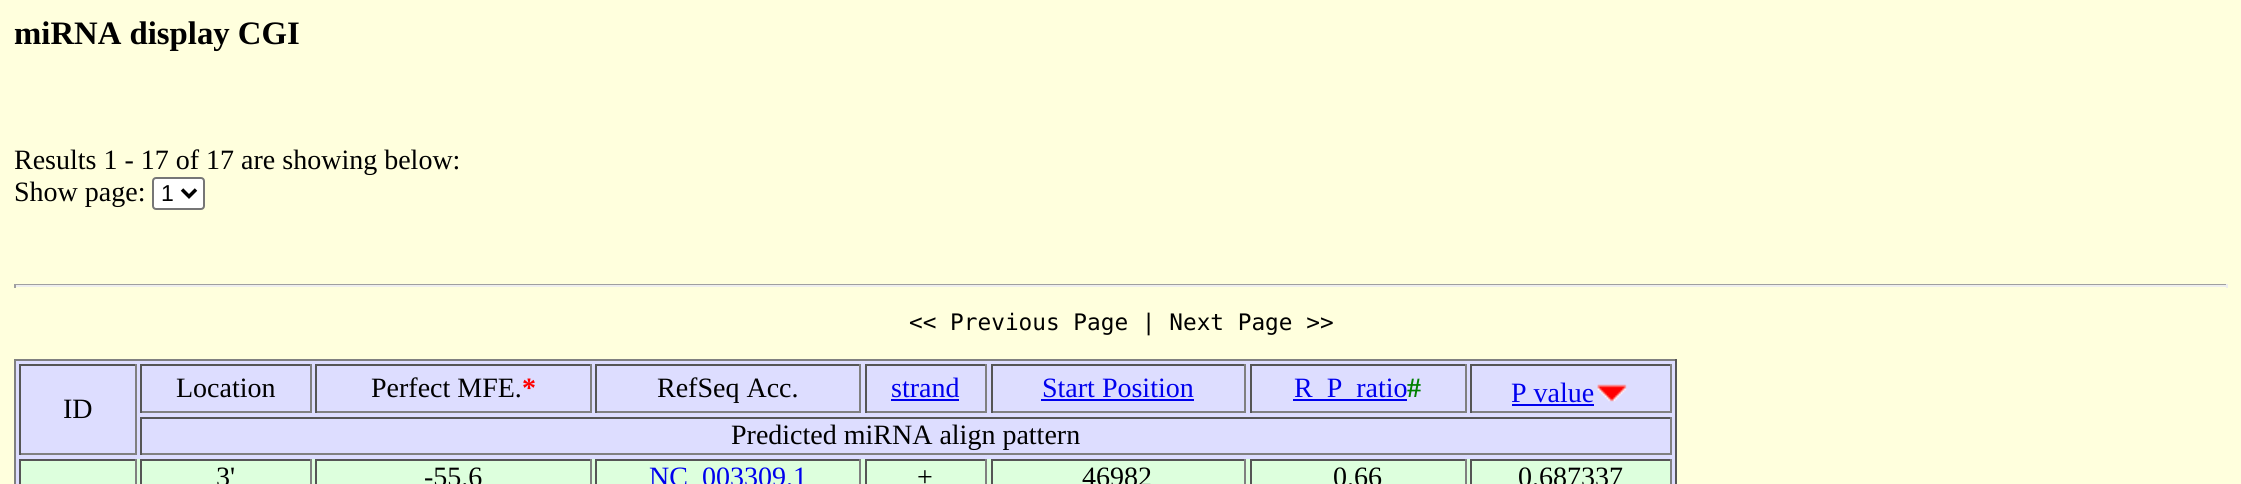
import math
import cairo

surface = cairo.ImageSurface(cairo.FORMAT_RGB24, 2241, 484)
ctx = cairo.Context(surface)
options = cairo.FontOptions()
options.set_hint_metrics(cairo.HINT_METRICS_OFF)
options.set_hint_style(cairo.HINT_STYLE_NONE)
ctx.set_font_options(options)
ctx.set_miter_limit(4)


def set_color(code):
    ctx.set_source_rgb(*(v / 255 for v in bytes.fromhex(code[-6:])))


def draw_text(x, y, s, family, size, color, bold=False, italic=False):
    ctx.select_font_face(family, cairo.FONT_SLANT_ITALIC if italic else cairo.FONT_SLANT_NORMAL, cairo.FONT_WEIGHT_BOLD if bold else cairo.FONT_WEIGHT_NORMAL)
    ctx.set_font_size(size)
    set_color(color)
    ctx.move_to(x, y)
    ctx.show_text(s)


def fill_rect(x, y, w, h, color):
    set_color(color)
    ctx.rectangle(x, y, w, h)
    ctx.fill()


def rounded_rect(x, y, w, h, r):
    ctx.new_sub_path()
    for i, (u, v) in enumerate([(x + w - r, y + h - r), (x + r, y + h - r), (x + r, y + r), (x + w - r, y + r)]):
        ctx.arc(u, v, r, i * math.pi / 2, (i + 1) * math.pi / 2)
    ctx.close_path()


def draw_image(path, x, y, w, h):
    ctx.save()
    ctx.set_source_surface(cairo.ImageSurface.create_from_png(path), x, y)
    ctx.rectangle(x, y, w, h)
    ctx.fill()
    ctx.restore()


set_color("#ffffdd")
ctx.paint()
draw_text(14, 44, "miRNA display CGI", "Liberation Serif", 32.75, "#000000", bold=True)
draw_text(14, 169, "Results 1 - 17 of 17 are showing below:", "Liberation Serif", 28, "#000000")
draw_text(14, 201, "Show page:", "Liberation Serif", 28, "#000000")
set_color("#ffffff")
rounded_rect(153, 178, 51, 31, 3)
ctx.fill_preserve()
set_color("#767676")
ctx.stroke()
ctx.new_path()
ctx.move_to(182, 189.5)
ctx.line_to(189, 196.5)
ctx.line_to(196, 189.5)
set_color("#000000")
ctx.set_line_width(3.5)
ctx.stroke()
draw_text(161, 201, "1", "Liberation Sans", 23, "#000000")
fill_rect(14, 284, 2214, 1, "#9f9f9f")
fill_rect(2226, 284, 2, 4, "#eeeeee")
fill_rect(14, 285, 2214, 2, "#eeeeee")
fill_rect(14, 284, 2, 4, "#9f9f9f")
draw_text(909, 330, "<< Previous Page | Next Page >>", "DejaVu Sans Mono", 22.75, "#000000")
fill_rect(16, 361, 1659, 123, "#ddddff")
fill_rect(14, 359, 1663, 2, "#808080")
fill_rect(1675, 359, 2, 125, "#555555")
fill_rect(14, 359, 2, 125, "#808080")
fill_rect(140, 364, 172, 2, "#555555")
fill_rect(310, 364, 2, 49, "#808080")
fill_rect(140, 411, 172, 2, "#808080")
fill_rect(140, 364, 2, 49, "#555555")
draw_text(176, 397, "Location", "Liberation Serif", 28, "#000000")
fill_rect(315, 364, 277, 2, "#555555")
fill_rect(590, 364, 2, 49, "#808080")
fill_rect(315, 411, 277, 2, "#808080")
fill_rect(315, 364, 2, 49, "#555555")
draw_text(371, 397, "Perfect MFE.", "Liberation Serif", 28, "#000000")
draw_text(522, 397, "*", "Liberation Serif", 28, "#ff0000", bold=True)
fill_rect(595, 364, 266, 2, "#555555")
fill_rect(859, 364, 2, 49, "#808080")
fill_rect(595, 411, 266, 2, "#808080")
fill_rect(595, 364, 2, 49, "#555555")
draw_text(657, 397, "RefSeq Acc.", "Liberation Serif", 28, "#000000")
fill_rect(865, 364, 122, 2, "#555555")
fill_rect(985, 364, 2, 49, "#808080")
fill_rect(865, 411, 122, 2, "#808080")
fill_rect(865, 364, 2, 49, "#555555")
draw_text(891, 397, "strand", "Liberation Serif", 28, "#0000ee")
fill_rect(891, 399, 68, 2, "#0000ee")
fill_rect(991, 364, 255, 2, "#555555")
fill_rect(1244, 364, 2, 49, "#808080")
fill_rect(991, 411, 255, 2, "#808080")
fill_rect(991, 364, 2, 49, "#555555")
draw_text(1042, 397, "Start Position", "Liberation Serif", 28, "#0000ee")
fill_rect(1041, 399, 153, 2, "#0000ee")
fill_rect(1250, 364, 217, 2, "#555555")
fill_rect(1465, 364, 2, 49, "#808080")
fill_rect(1250, 411, 217, 2, "#808080")
fill_rect(1250, 364, 2, 49, "#555555")
fill_rect(1293, 399, 114, 2, "#0000ee")
draw_text(1294, 397, "R_P_ratio", "Liberation Serif", 28, "#0000ee")
draw_text(1407, 397, "#", "Liberation Serif", 28, "#008000", bold=True)
fill_rect(1470, 364, 201, 2, "#555555")
fill_rect(1670, 364, 2, 49, "#808080")
fill_rect(1470, 411, 201, 2, "#808080")
fill_rect(1470, 364, 2, 49, "#555555")
draw_text(1511, 402, "P value", "Liberation Serif", 28, "#0000ee")
fill_rect(1512, 404, 82, 2, "#0000ee")
draw_image("assets/img1.png", 1597, 384, 30, 18)
fill_rect(19, 364, 118, 2, "#555555")
fill_rect(135, 364, 2, 91, "#808080")
fill_rect(19, 453, 118, 2, "#808080")
fill_rect(19, 364, 2, 91, "#555555")
draw_text(63, 418, "ID", "Liberation Serif", 28, "#000000")
fill_rect(140, 417, 1531, 2, "#555555")
fill_rect(1670, 417, 2, 38, "#808080")
fill_rect(140, 453, 1531, 2, "#808080")
fill_rect(140, 417, 2, 38, "#555555")
draw_text(731, 444, "Predicted miRNA align pattern", "Liberation Serif", 28, "#000000")
fill_rect(21, 459, 1649, 25, "#ddffdd")
fill_rect(19, 459, 118, 2, "#555555")
fill_rect(135, 459, 2, 25, "#808080")
fill_rect(19, 459, 2, 25, "#555555")
fill_rect(140, 459, 172, 2, "#555555")
fill_rect(310, 459, 2, 25, "#808080")
fill_rect(140, 459, 2, 25, "#555555")
draw_text(216, 486, "3'", "Liberation Serif", 28, "#000000")
fill_rect(315, 459, 277, 2, "#555555")
fill_rect(590, 459, 2, 25, "#808080")
fill_rect(315, 459, 2, 25, "#555555")
draw_text(424, 486, "-55.6", "Liberation Serif", 28, "#000000")
fill_rect(595, 459, 266, 2, "#555555")
fill_rect(859, 459, 2, 25, "#808080")
fill_rect(595, 459, 2, 25, "#555555")
draw_text(649, 486, "NC_003309.1", "Liberation Serif", 28, "#0000ee")
fill_rect(865, 459, 122, 2, "#555555")
fill_rect(985, 459, 2, 25, "#808080")
fill_rect(865, 459, 2, 25, "#555555")
draw_text(917, 486, "+", "Liberation Serif", 28, "#000000")
fill_rect(991, 459, 255, 2, "#555555")
fill_rect(1244, 459, 2, 25, "#808080")
fill_rect(991, 459, 2, 25, "#555555")
draw_text(1082, 486, "46982", "Liberation Serif", 28, "#000000")
fill_rect(1250, 459, 217, 2, "#555555")
fill_rect(1465, 459, 2, 25, "#808080")
fill_rect(1250, 459, 2, 25, "#555555")
draw_text(1333, 486, "0.66", "Liberation Serif", 28, "#000000")
fill_rect(1470, 459, 201, 2, "#555555")
fill_rect(1670, 459, 2, 25, "#808080")
fill_rect(1470, 459, 2, 25, "#555555")
draw_text(1518, 486, "0.687337", "Liberation Serif", 28, "#000000")
surface.write_to_png("output.png")
